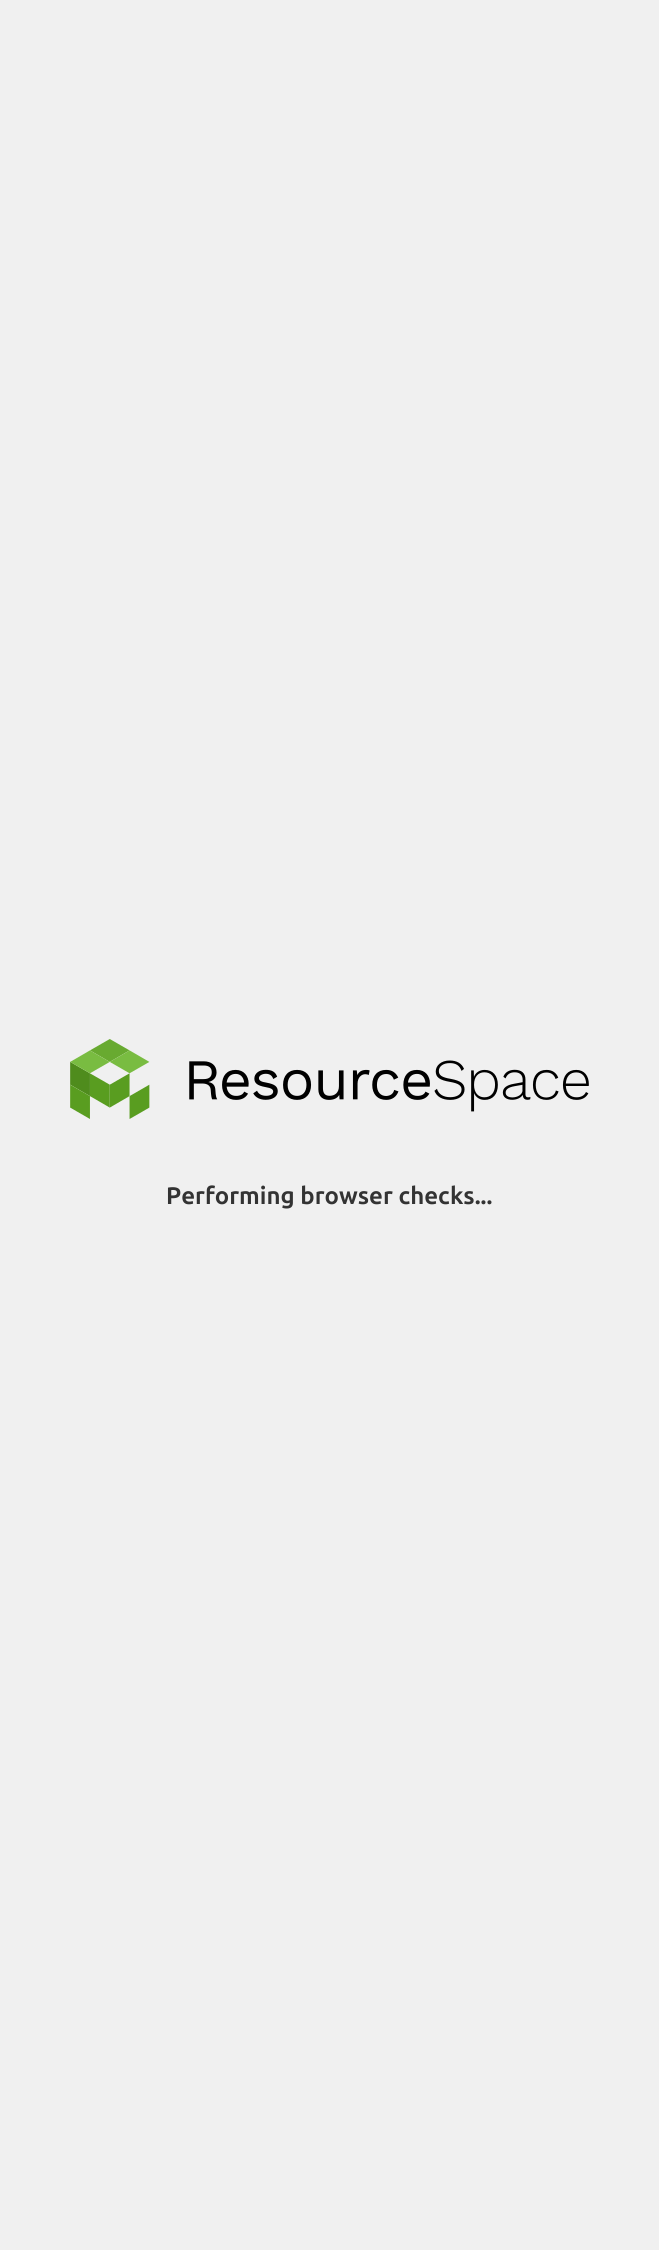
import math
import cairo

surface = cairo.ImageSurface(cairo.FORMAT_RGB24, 659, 2250)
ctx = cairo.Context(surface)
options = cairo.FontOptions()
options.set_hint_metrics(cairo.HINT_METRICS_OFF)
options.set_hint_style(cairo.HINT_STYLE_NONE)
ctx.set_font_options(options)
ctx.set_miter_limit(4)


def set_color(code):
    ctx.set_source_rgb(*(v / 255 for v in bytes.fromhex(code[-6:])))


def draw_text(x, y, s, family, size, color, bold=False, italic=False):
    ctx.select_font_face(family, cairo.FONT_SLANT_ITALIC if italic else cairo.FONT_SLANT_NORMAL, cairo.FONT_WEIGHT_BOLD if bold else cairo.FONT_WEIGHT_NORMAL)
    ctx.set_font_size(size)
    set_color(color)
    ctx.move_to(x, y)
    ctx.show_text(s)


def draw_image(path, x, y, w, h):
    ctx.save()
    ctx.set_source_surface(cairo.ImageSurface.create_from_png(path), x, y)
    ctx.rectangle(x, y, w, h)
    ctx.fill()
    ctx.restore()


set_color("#f0f0f0")
ctx.paint()
draw_image("assets/img1.png", 70, 1039, 519, 80)
draw_text(166, 1204, "Performing browser checks...", "Ubuntu", 24, "#333333", bold=True)
surface.write_to_png("output.png")
